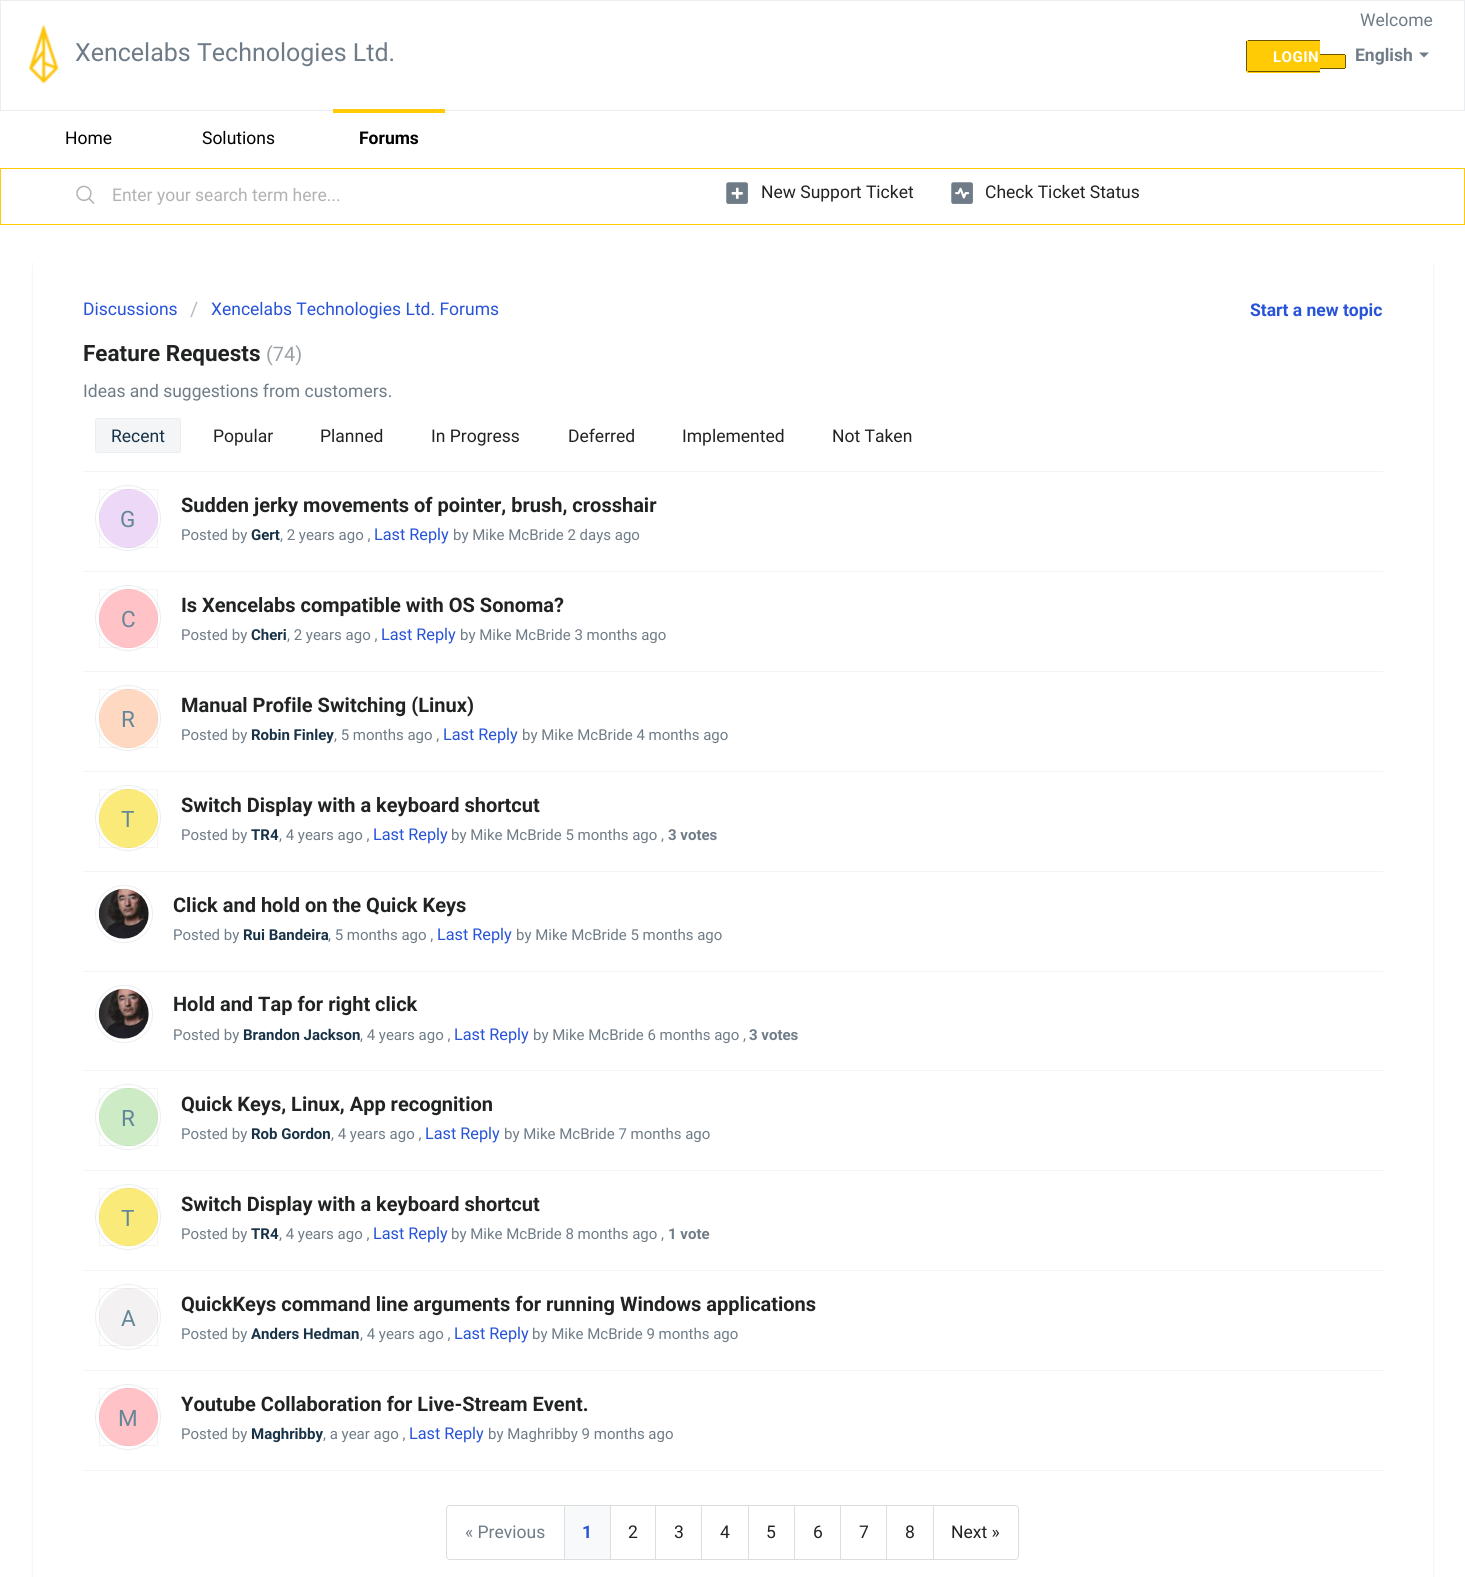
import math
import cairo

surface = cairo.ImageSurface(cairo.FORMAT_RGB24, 1465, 1577)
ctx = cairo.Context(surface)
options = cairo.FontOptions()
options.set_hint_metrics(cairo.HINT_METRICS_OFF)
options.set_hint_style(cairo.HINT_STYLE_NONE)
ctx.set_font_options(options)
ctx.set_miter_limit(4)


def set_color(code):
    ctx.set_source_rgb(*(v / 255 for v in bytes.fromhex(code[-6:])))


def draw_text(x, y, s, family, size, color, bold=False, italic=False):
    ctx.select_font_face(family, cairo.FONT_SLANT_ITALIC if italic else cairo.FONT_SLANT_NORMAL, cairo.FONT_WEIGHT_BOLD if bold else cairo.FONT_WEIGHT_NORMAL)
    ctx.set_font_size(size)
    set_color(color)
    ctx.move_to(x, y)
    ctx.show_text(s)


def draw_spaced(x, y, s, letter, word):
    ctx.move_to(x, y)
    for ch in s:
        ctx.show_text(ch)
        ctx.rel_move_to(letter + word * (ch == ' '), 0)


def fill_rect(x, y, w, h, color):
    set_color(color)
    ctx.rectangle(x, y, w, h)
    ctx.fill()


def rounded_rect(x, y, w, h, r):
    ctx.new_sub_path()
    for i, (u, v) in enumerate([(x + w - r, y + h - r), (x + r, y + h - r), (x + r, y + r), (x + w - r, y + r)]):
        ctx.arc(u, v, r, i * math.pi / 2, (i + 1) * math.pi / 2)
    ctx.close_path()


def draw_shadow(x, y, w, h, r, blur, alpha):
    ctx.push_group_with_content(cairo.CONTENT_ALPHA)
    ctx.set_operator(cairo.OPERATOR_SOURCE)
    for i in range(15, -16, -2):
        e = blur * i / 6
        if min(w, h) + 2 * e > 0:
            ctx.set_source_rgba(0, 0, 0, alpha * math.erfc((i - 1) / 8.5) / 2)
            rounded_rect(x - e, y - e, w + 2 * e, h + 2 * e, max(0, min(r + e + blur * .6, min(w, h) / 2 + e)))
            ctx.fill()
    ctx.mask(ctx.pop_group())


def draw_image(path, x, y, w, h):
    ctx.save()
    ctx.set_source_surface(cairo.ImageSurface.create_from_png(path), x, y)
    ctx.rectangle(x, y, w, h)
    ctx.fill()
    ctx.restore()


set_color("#ffffff")
ctx.paint()
ctx.rectangle(0.5, 0.5, 1464, 110)
set_color("#ebeef0")
ctx.set_line_width(1)
ctx.stroke()
draw_image("assets/img1.png", 28, 24, 31, 60)
draw_text(75, 61, "Xencelabs Technologies Ltd.", "Roboto", 25, "#6f7c87")
draw_text(1360, 26, "Welcome", "Roboto", 17.5, "#6f7c87")
set_color("#ffcb05")
ctx.new_path()
ctx.move_to(1248.5, 40)
ctx.line_to(1320, 40)
ctx.line_to(1320, 73)
ctx.line_to(1248.5, 73)
ctx.curve_to(1247, 73, 1246, 72, 1246, 70.5)
ctx.line_to(1246, 42.5)
ctx.curve_to(1246, 41, 1247, 40, 1248.5, 40)
ctx.close_path()
ctx.fill()
ctx.select_font_face("Roboto", cairo.FONT_SLANT_NORMAL, cairo.FONT_WEIGHT_BOLD)
ctx.set_font_size(15)
set_color("#ffffff")
draw_spaced(1273, 62, "LOGIN", 0.5, 0)
fill_rect(1248, 40, 72, 1, "#6b5500")
fill_rect(1248, 71, 72, 1, "#6b5500")
fill_rect(1246, 41, 1, 30, "#6b5500")
set_color("#ffcb05")
ctx.new_path()
ctx.move_to(1320, 54)
ctx.line_to(1343.5, 54)
ctx.curve_to(1345, 54, 1346, 55, 1346, 56.5)
ctx.line_to(1346, 66.5)
ctx.curve_to(1346, 68, 1345, 69, 1343.5, 69)
ctx.line_to(1320, 69)
ctx.close_path()
ctx.fill()
fill_rect(1320, 54, 25, 1, "#6b5500")
fill_rect(1345, 55, 1, 13, "#6b5500")
fill_rect(1320, 68, 25, 1, "#6b5500")
draw_text(1355, 61, "English", "Roboto", 17.5, "#6f7c87", bold=True)
ctx.new_path()
ctx.move_to(1419, 52.5)
ctx.line_to(1429, 52.5)
ctx.line_to(1424, 57.5)
ctx.close_path()
ctx.fill()
draw_text(65, 144, "Home", "Roboto", 17.5, "#000000")
draw_text(202, 144, "Solutions", "Roboto", 17.5, "#000000")
fill_rect(333, 109, 112, 4, "#ffcb05")
draw_text(359, 144, "Forums", "Roboto", 17.5, "#000000", bold=True)
ctx.rectangle(0.5, 168.5, 1464, 56)
set_color("#ffcb05")
ctx.stroke()
draw_image("assets/img2.png", 76, 185, 19, 19)
draw_text(112, 201, "Enter your search term here...", "Roboto", 17.5, "#b2b2b2")
draw_image("assets/img3.png", 726, 182, 22, 22)
draw_text(761, 198, "New Support Ticket", "Roboto", 17.5, "#212322")
draw_image("assets/img4.png", 951, 182, 22, 22)
draw_text(985, 198, "Check Ticket Status", "Roboto", 17.5, "#212322")
set_color("#3f3f44")
draw_shadow(33, 259, 1400, 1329, 8, 1, 0.15)
set_color("#ffffff")
rounded_rect(33, 258, 1400, 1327, 8)
ctx.fill()
draw_text(83, 315, "Discussions", "Roboto", 17.5, "#2753d7")
draw_text(190, 316, "/", "Roboto", 20, "#bbbbbb")
draw_text(211, 315, "Xencelabs Technologies Ltd. Forums", "Roboto", 17.5, "#2753d7")
draw_text(1250, 316, "Start a new topic", "Roboto", 17.5, "#2753d7", bold=True)
draw_text(83, 361, "Feature Requests", "Roboto", 22.5, "#212322", bold=True)
draw_text(266, 361, "(74)", "Roboto", 20, "#9aa1a6")
draw_text(83, 397, "Ideas and suggestions from customers.", "Roboto", 17.5, "#6f7c87")
set_color("#f3f5f7")
rounded_rect(95.5, 418.5, 85, 34, 2)
ctx.fill_preserve()
set_color("#ebeef0")
ctx.stroke()
draw_text(111, 442, "Recent", "Roboto", 17.5, "#183247")
draw_text(213, 442, "Popular", "Roboto", 17.5, "#212322")
draw_text(320, 442, "Planned", "Roboto", 17.5, "#212322")
draw_text(431, 442, "In Progress", "Roboto", 17.5, "#212322")
draw_text(568, 442, "Deferred", "Roboto", 17.5, "#212322")
draw_text(682, 442, "Implemented", "Roboto", 17.5, "#212322")
draw_text(832, 442, "Not Taken", "Roboto", 17.5, "#212322")
fill_rect(83, 1470, 1300, 1, "#f3f3f3")
fill_rect(83, 471, 1300, 1, "#f3f3f3")
draw_text(181, 512, "Sudden jerky movements of pointer, brush, crosshair", "Roboto", 20, "#212322", bold=True)
ctx.new_path()
ctx.arc(128, 518, 32.5, 0, 2 * math.pi)
set_color("#ebeef0")
ctx.stroke()
set_color("#eed8f7")
ctx.arc(128.5, 518.5, 29.5, 0, 2 * math.pi)
ctx.fill()
ctx.rectangle(99.5, 489.5, 58, 58)
ctx.set_source_rgba(0, 0, 0, 0.04)
ctx.stroke()
draw_text(120, 527, "G", "Roboto", 22.5, "#638699")
draw_text(181, 540, "Posted by", "Roboto", 15, "#6f7c87")
draw_text(251, 540, "Gert", "Roboto", 15, "#183247", bold=True)
draw_text(280, 540, ", 2 years ago ,", "Roboto", 15, "#6f7c87")
draw_text(374, 540, "Last Reply", "Roboto", 16.25, "#2753d7")
draw_text(453, 540, "by Mike McBride 2 days ago", "Roboto", 15, "#6f7c87")
fill_rect(83, 571, 1300, 1, "#f3f3f3")
draw_text(181, 612, "Is Xencelabs compatible with OS Sonoma?", "Roboto", 20, "#212322", bold=True)
ctx.new_path()
ctx.arc(128, 618, 32.5, 0, 2 * math.pi)
set_color("#ebeef0")
ctx.stroke()
set_color("#ffc2c6")
ctx.arc(128.5, 618.5, 29.5, 0, 2 * math.pi)
ctx.fill()
ctx.rectangle(99.5, 589.5, 58, 58)
ctx.set_source_rgba(0, 0, 0, 0.04)
ctx.stroke()
draw_text(121, 627, "C", "Roboto", 22.5, "#638699")
draw_text(181, 640, "Posted by", "Roboto", 15, "#6f7c87")
draw_text(251, 640, "Cheri", "Roboto", 15, "#183247", bold=True)
draw_text(287, 640, ", 2 years ago ,", "Roboto", 15, "#6f7c87")
draw_text(381, 640, "Last Reply", "Roboto", 16.25, "#2753d7")
draw_text(460, 640, "by Mike McBride 3 months ago", "Roboto", 15, "#6f7c87")
fill_rect(83, 671, 1300, 1, "#f3f3f3")
draw_text(181, 712, "Manual Profile Switching (Linux)", "Roboto", 20, "#212322", bold=True)
ctx.new_path()
ctx.arc(128, 718, 32.5, 0, 2 * math.pi)
set_color("#ebeef0")
ctx.stroke()
set_color("#ffd8c2")
ctx.arc(128.5, 718.5, 29.5, 0, 2 * math.pi)
ctx.fill()
ctx.rectangle(99.5, 689.5, 58, 58)
ctx.set_source_rgba(0, 0, 0, 0.04)
ctx.stroke()
draw_text(121, 727, "R", "Roboto", 22.5, "#638699")
draw_text(181, 740, "Posted by", "Roboto", 15, "#6f7c87")
draw_text(251, 740, "Robin Finley", "Roboto", 15, "#183247", bold=True)
draw_text(334, 740, ", 5 months ago ,", "Roboto", 15, "#6f7c87")
draw_text(443, 740, "Last Reply", "Roboto", 16.25, "#2753d7")
draw_text(522, 740, "by Mike McBride 4 months ago", "Roboto", 15, "#6f7c87")
fill_rect(83, 771, 1300, 1, "#f3f3f3")
draw_text(181, 812, "Switch Display with a keyboard shortcut", "Roboto", 20, "#212322", bold=True)
ctx.new_path()
ctx.arc(128, 818, 32.5, 0, 2 * math.pi)
set_color("#ebeef0")
ctx.stroke()
set_color("#faea79")
ctx.arc(128.5, 818.5, 29.5, 0, 2 * math.pi)
ctx.fill()
ctx.rectangle(99.5, 789.5, 58, 58)
ctx.set_source_rgba(0, 0, 0, 0.04)
ctx.stroke()
draw_text(121, 827, "T", "Roboto", 22.5, "#638699")
draw_text(181, 840, "Posted by", "Roboto", 15, "#6f7c87")
draw_text(251, 840, "TR4", "Roboto", 15, "#183247", bold=True)
draw_text(279, 840, ", 4 years ago ,", "Roboto", 15, "#6f7c87")
draw_text(373, 840, "Last Reply", "Roboto", 16.25, "#2753d7")
draw_text(451, 840, "by Mike McBride 5 months ago ,", "Roboto", 15, "#6f7c87")
draw_text(668, 840, "3 votes", "Roboto", 15, "#6f7c87", bold=True)
fill_rect(83, 871, 1300, 1, "#f3f3f3")
ctx.new_path()
ctx.arc(124, 914, 28.5, 0, 2 * math.pi)
set_color("#ebeef0")
ctx.stroke()
draw_image("assets/img5.png", 98, 888, 51, 51)
draw_text(173, 912, "Click and hold on the Quick Keys", "Roboto", 20, "#212322", bold=True)
draw_text(173, 940, "Posted by", "Roboto", 15, "#6f7c87")
draw_text(243, 940, "Rui Bandeira", "Roboto", 15, "#183247", bold=True)
draw_text(328, 940, ", 5 months ago ,", "Roboto", 15, "#6f7c87")
draw_text(437, 940, "Last Reply", "Roboto", 16.25, "#2753d7")
draw_text(516, 940, "by Mike McBride 5 months ago", "Roboto", 15, "#6f7c87")
fill_rect(83, 971, 1300, 1, "#f3f3f3")
ctx.new_path()
ctx.arc(124, 1014, 28.5, 0, 2 * math.pi)
set_color("#ebeef0")
ctx.stroke()
draw_image("assets/img6.png", 98, 988, 51, 51)
draw_text(173, 1011, "Hold and Tap for right click", "Roboto", 20, "#212322", bold=True)
draw_text(173, 1040, "Posted by", "Roboto", 15, "#6f7c87")
draw_text(243, 1040, "Brandon Jackson", "Roboto", 15, "#183247", bold=True)
draw_text(360, 1040, ", 4 years ago ,", "Roboto", 15, "#6f7c87")
draw_text(454, 1040, "Last Reply", "Roboto", 16.25, "#2753d7")
draw_text(533, 1040, "by Mike McBride 6 months ago ,", "Roboto", 15, "#6f7c87")
draw_text(749, 1040, "3 votes", "Roboto", 15, "#6f7c87", bold=True)
fill_rect(83, 1070, 1300, 1, "#f3f3f3")
draw_text(181, 1111, "Quick Keys, Linux, App recognition", "Roboto", 20, "#212322", bold=True)
ctx.new_path()
ctx.arc(128, 1117, 32.5, 0, 2 * math.pi)
set_color("#ebeef0")
ctx.stroke()
set_color("#cdebc4")
rounded_rect(99, 1088, 59, 58, 29)
ctx.fill()
ctx.rectangle(99.5, 1088.5, 58, 57)
ctx.set_source_rgba(0, 0, 0, 0.04)
ctx.stroke()
draw_text(121, 1126, "R", "Roboto", 22.5, "#638699")
draw_text(181, 1139, "Posted by", "Roboto", 15, "#6f7c87")
draw_text(251, 1139, "Rob Gordon", "Roboto", 15, "#183247", bold=True)
draw_text(331, 1139, ", 4 years ago ,", "Roboto", 15, "#6f7c87")
draw_text(425, 1139, "Last Reply", "Roboto", 16.25, "#2753d7")
draw_text(504, 1139, "by Mike McBride 7 months ago", "Roboto", 15, "#6f7c87")
fill_rect(83, 1170, 1300, 1, "#f3f3f3")
draw_text(181, 1211, "Switch Display with a keyboard shortcut", "Roboto", 20, "#212322", bold=True)
ctx.new_path()
ctx.arc(128, 1217, 32.5, 0, 2 * math.pi)
set_color("#ebeef0")
ctx.stroke()
set_color("#faea79")
rounded_rect(99, 1188, 59, 58, 29)
ctx.fill()
ctx.rectangle(99.5, 1188.5, 58, 57)
ctx.set_source_rgba(0, 0, 0, 0.04)
ctx.stroke()
draw_text(121, 1226, "T", "Roboto", 22.5, "#638699")
draw_text(181, 1239, "Posted by", "Roboto", 15, "#6f7c87")
draw_text(251, 1239, "TR4", "Roboto", 15, "#183247", bold=True)
draw_text(279, 1239, ", 4 years ago ,", "Roboto", 15, "#6f7c87")
draw_text(373, 1239, "Last Reply", "Roboto", 16.25, "#2753d7")
draw_text(451, 1239, "by Mike McBride 8 months ago ,", "Roboto", 15, "#6f7c87")
draw_text(668, 1239, "1 vote", "Roboto", 15, "#6f7c87", bold=True)
fill_rect(83, 1270, 1300, 1, "#f3f3f3")
draw_text(181, 1311, "QuickKeys command line arguments for running Windows applications", "Roboto", 20, "#212322", bold=True)
ctx.new_path()
ctx.arc(128, 1317, 32.5, 0, 2 * math.pi)
set_color("#ebeef0")
ctx.stroke()
set_color("#f3f1f1")
rounded_rect(99, 1288, 59, 58, 29)
ctx.fill()
ctx.rectangle(99.5, 1288.5, 58, 57)
ctx.set_source_rgba(0, 0, 0, 0.04)
ctx.stroke()
draw_text(121, 1326, "A", "Roboto", 22.5, "#638699")
draw_text(181, 1339, "Posted by", "Roboto", 15, "#6f7c87")
draw_text(251, 1339, "Anders Hedman", "Roboto", 15, "#183247", bold=True)
draw_text(360, 1339, ", 4 years ago ,", "Roboto", 15, "#6f7c87")
draw_text(454, 1339, "Last Reply", "Roboto", 16.25, "#2753d7")
draw_text(532, 1339, "by Mike McBride 9 months ago", "Roboto", 15, "#6f7c87")
fill_rect(83, 1370, 1300, 1, "#f3f3f3")
draw_text(181, 1411, "Youtube Collaboration for Live-Stream Event.", "Roboto", 20, "#212322", bold=True)
ctx.new_path()
ctx.arc(128, 1417, 32.5, 0, 2 * math.pi)
set_color("#ebeef0")
ctx.stroke()
set_color("#ffc2c6")
rounded_rect(99, 1388, 59, 58, 29)
ctx.fill()
ctx.rectangle(99.5, 1388.5, 58, 57)
ctx.set_source_rgba(0, 0, 0, 0.04)
ctx.stroke()
draw_text(118, 1426, "M", "Roboto", 22.5, "#638699")
draw_text(181, 1439, "Posted by", "Roboto", 15, "#6f7c87")
draw_text(251, 1439, "Maghribby", "Roboto", 15, "#183247", bold=True)
draw_text(323, 1439, ", a year ago ,", "Roboto", 15, "#6f7c87")
draw_text(409, 1439, "Last Reply", "Roboto", 16.25, "#2753d7")
draw_text(488, 1439, "by Maghribby 9 months ago", "Roboto", 15, "#6f7c87")
ctx.new_path()
ctx.move_to(450, 1505.5)
ctx.line_to(564.5, 1505.5)
ctx.line_to(564.5, 1559.5)
ctx.line_to(450, 1559.5)
ctx.curve_to(448, 1559.5, 446.5, 1558, 446.5, 1556)
ctx.line_to(446.5, 1509)
ctx.curve_to(446.5, 1507, 448, 1505.5, 450, 1505.5)
ctx.close_path()
set_color("#dddddd")
ctx.stroke()
draw_text(465, 1538, "« Previous", "Roboto", 17.5, "#6f7c87")
fill_rect(565, 1506, 45, 53, "#f8f9fa")
fill_rect(565, 1505, 369, 1, "#dddddd")
fill_rect(610, 1505, 1, 55, "#dddddd")
fill_rect(565, 1559, 46, 1, "#dddddd")
draw_text(582, 1538, "1", "Roboto", 17.5, "#2753d7", bold=True)
fill_rect(655, 1505, 1, 55, "#dddddd")
fill_rect(611, 1559, 45, 1, "#dddddd")
draw_text(628, 1538, "2", "Roboto", 17.5, "#212322")
fill_rect(701, 1505, 1, 55, "#dddddd")
fill_rect(656, 1559, 47, 1, "#dddddd")
draw_text(674, 1538, "3", "Roboto", 17.5, "#212322")
fill_rect(748, 1505, 1, 55, "#dddddd")
fill_rect(703, 1559, 46, 1, "#dddddd")
draw_text(720, 1538, "4", "Roboto", 17.5, "#212322")
fill_rect(794, 1505, 1, 55, "#dddddd")
fill_rect(749, 1559, 46, 1, "#dddddd")
draw_text(766, 1538, "5", "Roboto", 17.5, "#212322")
fill_rect(840, 1505, 1, 55, "#dddddd")
fill_rect(795, 1559, 46, 1, "#dddddd")
draw_text(813, 1538, "6", "Roboto", 17.5, "#212322")
fill_rect(886, 1505, 1, 55, "#dddddd")
fill_rect(841, 1559, 47, 1, "#dddddd")
draw_text(859, 1538, "7", "Roboto", 17.5, "#212322")
fill_rect(933, 1505, 1, 55, "#dddddd")
fill_rect(888, 1559, 46, 1, "#dddddd")
draw_text(905, 1538, "8", "Roboto", 17.5, "#212322")
set_color("#dddddd")
ctx.set_fill_rule(cairo.FILL_RULE_EVEN_ODD)
ctx.new_path()
ctx.move_to(934, 1505)
ctx.line_to(1015, 1505)
ctx.curve_to(1017, 1505, 1019, 1507, 1019, 1509)
ctx.line_to(1019, 1556)
ctx.curve_to(1019, 1558, 1017, 1560, 1015, 1560)
ctx.line_to(934, 1560)
ctx.close_path()
ctx.move_to(934, 1506)
ctx.line_to(1015, 1506)
ctx.curve_to(1016, 1506, 1018, 1507, 1018, 1509)
ctx.line_to(1018, 1556)
ctx.curve_to(1018, 1558, 1016, 1559, 1015, 1559)
ctx.line_to(934, 1559)
ctx.close_path()
ctx.fill()
draw_text(951, 1538, "Next »", "Roboto", 17.5, "#212322")
surface.write_to_png("output.png")
